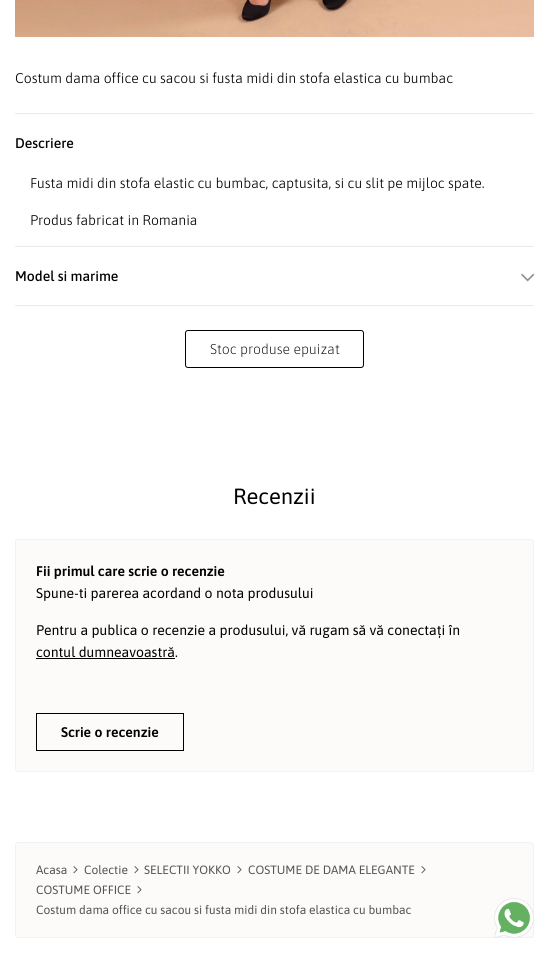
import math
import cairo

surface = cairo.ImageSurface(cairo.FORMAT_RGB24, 549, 958)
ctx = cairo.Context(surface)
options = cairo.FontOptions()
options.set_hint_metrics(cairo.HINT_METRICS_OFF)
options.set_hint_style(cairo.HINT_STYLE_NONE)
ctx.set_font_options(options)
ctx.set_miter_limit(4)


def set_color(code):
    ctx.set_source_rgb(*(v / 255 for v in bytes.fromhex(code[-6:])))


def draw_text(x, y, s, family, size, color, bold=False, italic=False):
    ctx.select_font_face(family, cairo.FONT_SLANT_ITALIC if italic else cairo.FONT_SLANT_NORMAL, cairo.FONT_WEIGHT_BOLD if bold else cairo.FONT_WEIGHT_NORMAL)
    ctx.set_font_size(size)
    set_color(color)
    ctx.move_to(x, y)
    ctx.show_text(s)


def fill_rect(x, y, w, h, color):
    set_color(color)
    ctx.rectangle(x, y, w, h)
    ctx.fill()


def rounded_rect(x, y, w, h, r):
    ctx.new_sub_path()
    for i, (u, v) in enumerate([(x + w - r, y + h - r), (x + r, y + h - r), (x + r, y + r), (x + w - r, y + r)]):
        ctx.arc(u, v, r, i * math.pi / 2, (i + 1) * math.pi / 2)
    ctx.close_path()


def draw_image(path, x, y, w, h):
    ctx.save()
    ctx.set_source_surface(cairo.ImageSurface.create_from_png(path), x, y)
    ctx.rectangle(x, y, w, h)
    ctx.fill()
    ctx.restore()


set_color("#ffffff")
ctx.paint()
draw_image("assets/img1.png", 15, 0, 519, 37)
draw_text(15, 83, "Costum dama office cu sacou si fusta midi din stofa elastica cu bumbac", "Asap Light", 14, "#000000")
fill_rect(15, 305, 519, 1, "#ebebeb")
fill_rect(15, 113, 519, 1, "#ebebeb")
draw_text(15, 148, "Descriere", "Asap Medium", 14, "#000000")
draw_text(30, 188, "Fusta midi din stofa elastic cu bumbac, captusita, si cu slit pe mijloc spate.", "Asap Light", 14, "#000000")
draw_text(30, 225, "Produs fabricat in Romania", "Asap Light", 14, "#000000")
fill_rect(15, 246, 519, 1, "#ebebeb")
draw_text(15, 281, "Model si marime", "Asap Medium", 14, "#000000")
draw_image("assets/img2.png", 521, 273, 14, 9)
rounded_rect(185.5, 330.5, 178, 37, 2.5)
ctx.set_line_width(1)
ctx.stroke()
draw_text(210, 354, "Stoc produse epuizat", "Asap ExtraLight", 14, "#000000")
draw_text(233, 504, "Recenzii", "Asap", 22, "#000000")
set_color("#fcfbf9")
rounded_rect(15.5, 539.5, 518, 232, 2.5)
ctx.fill_preserve()
set_color("#f2f2f2")
ctx.stroke()
draw_text(36, 576, "Fii primul care scrie o recenzie", "Asap SemiBold", 14, "#000000")
draw_text(36, 598, "Spune-ti parerea acordand o nota produsului", "Asap", 14, "#000000")
draw_text(36, 635, "Pentru a publica o recenzie a produsului, vă rugam să vă conectați în", "Asap", 14, "#000000")
draw_text(36, 657, "contul dumneavoastră.", "Asap", 14, "#000000")
fill_rect(36, 658, 139, 1, "#000000")
ctx.rectangle(36.5, 713.5, 147, 37)
ctx.stroke()
draw_text(61, 737, "Scrie o recenzie", "Asap SemiBold", 14, "#000000")
set_color("#fcfbf9")
rounded_rect(15.5, 842.5, 518, 95, 2.5)
ctx.fill_preserve()
set_color("#f2f2f2")
ctx.stroke()
draw_text(36, 874, "Acasa", "Asap", 12, "#545454")
draw_image("assets/img3.png", 73, 866, 5, 8)
draw_text(84, 874, "Colectie", "Asap", 12, "#545454")
draw_image("assets/img3.png", 134, 866, 5, 8)
draw_text(144, 874, "SELECTII YOKKO", "Asap", 12, "#545454")
draw_image("assets/img3.png", 237, 866, 5, 8)
draw_text(248, 874, "COSTUME DE DAMA ELEGANTE", "Asap", 12, "#545454")
draw_image("assets/img3.png", 421, 866, 5, 8)
draw_text(36, 894, "COSTUME OFFICE", "Asap", 12, "#545454")
draw_image("assets/img3.png", 137, 886, 5, 8)
draw_text(36, 914, "Costum dama office cu sacou si fusta midi din stofa elastica cu bumbac", "Asap", 12, "#545454")
draw_image("assets/img4.png", 494, 898, 40, 40)
surface.write_to_png("output.png")
